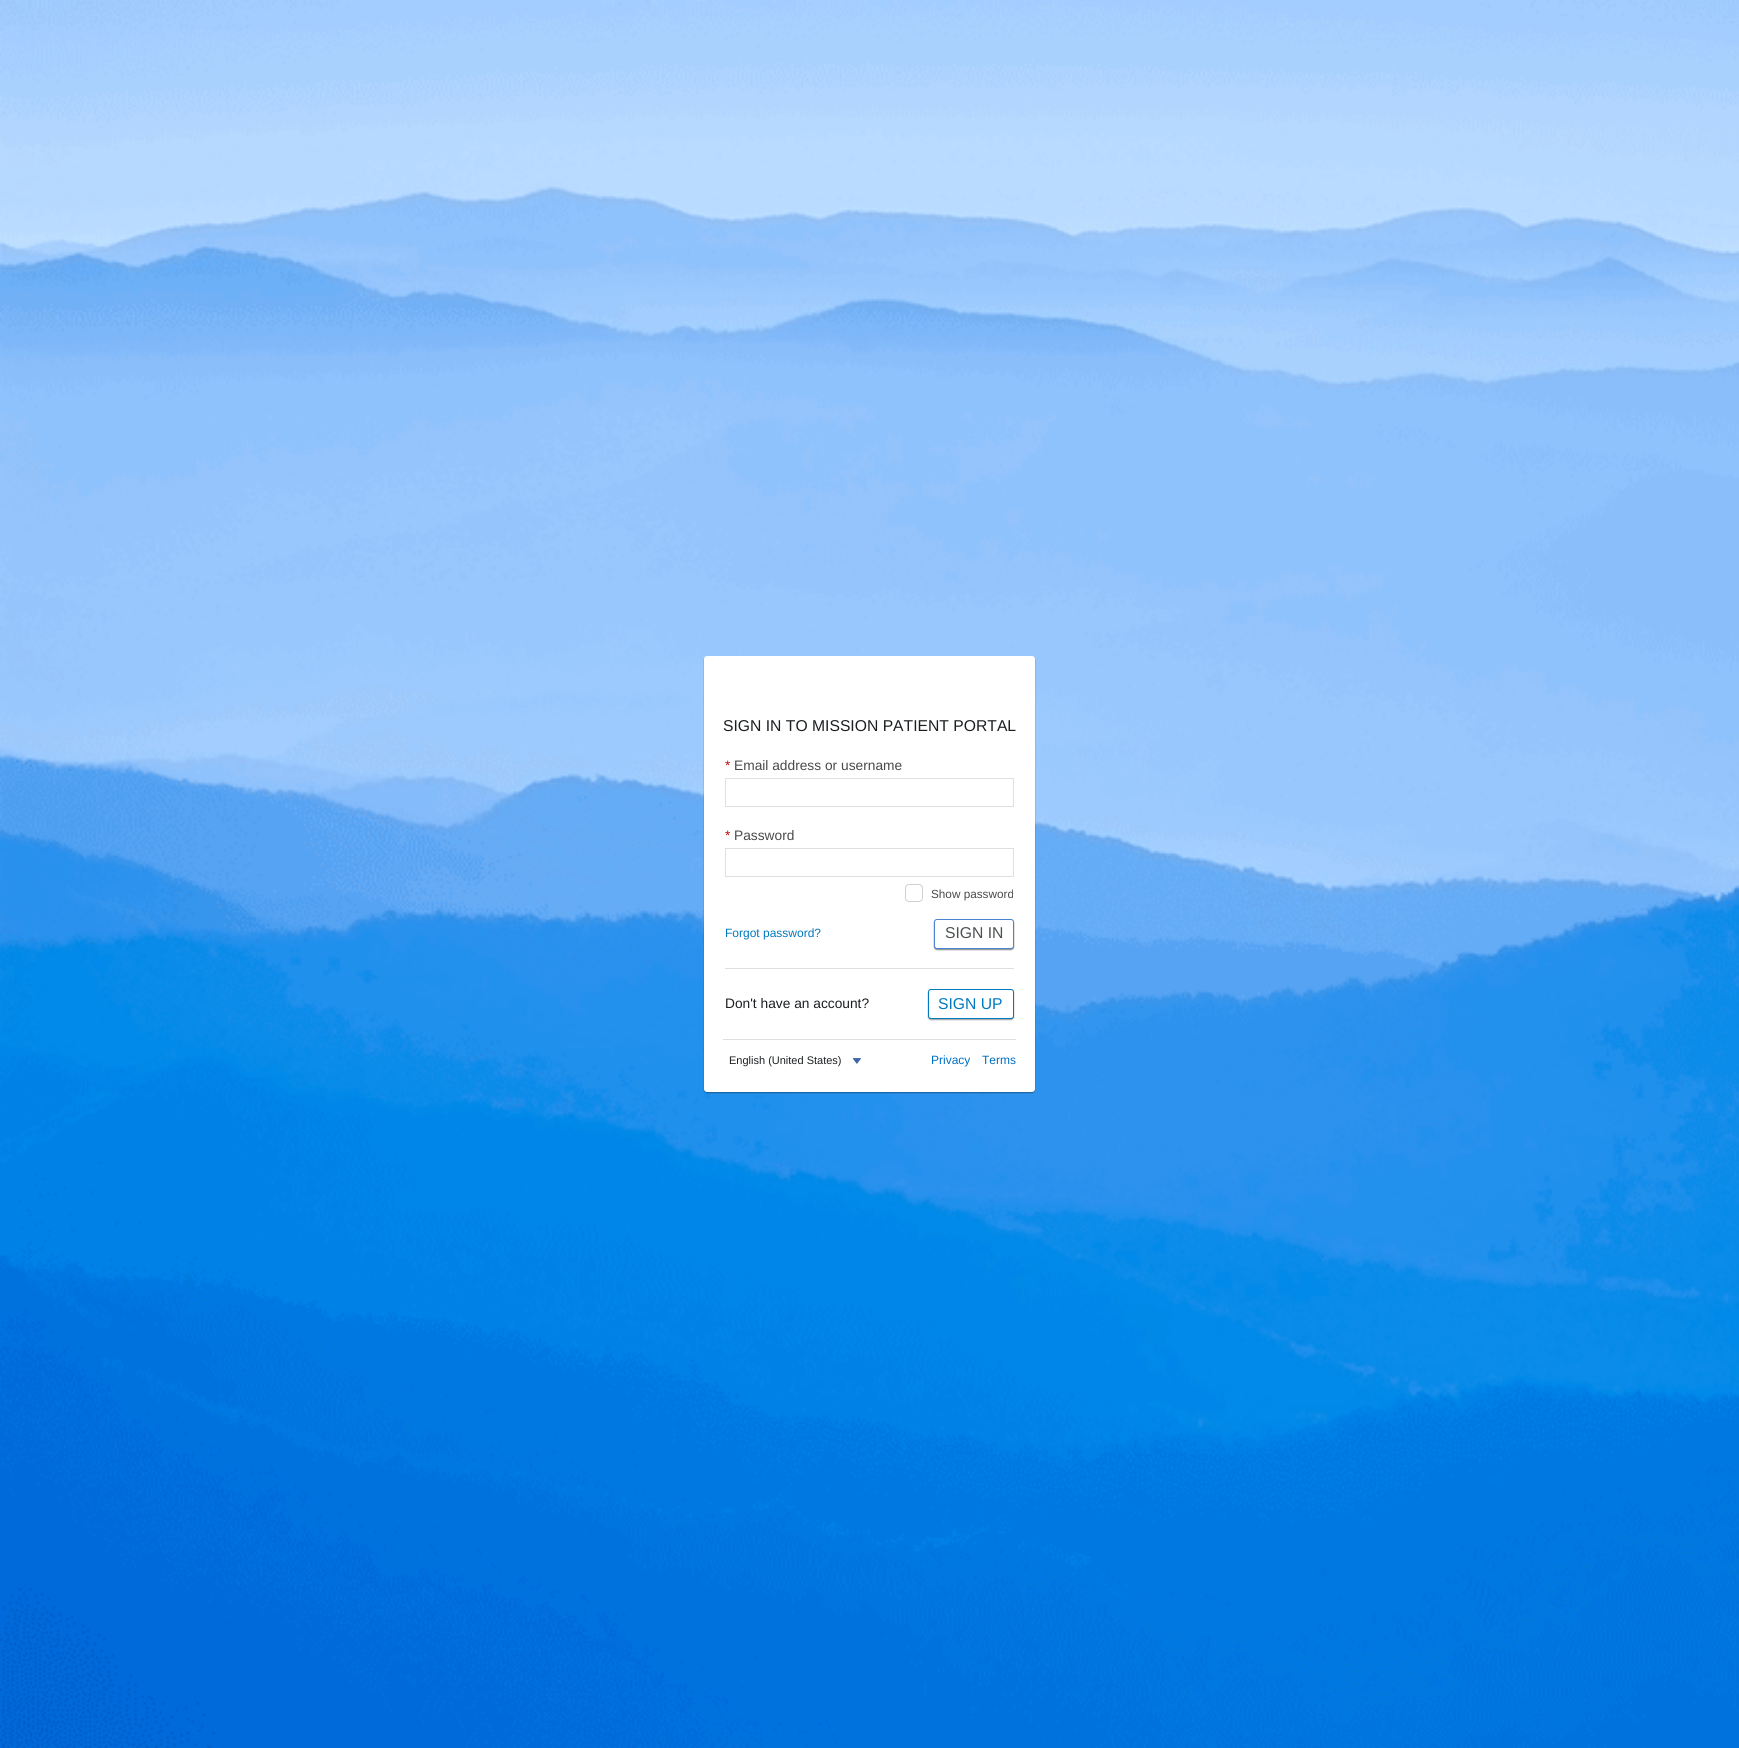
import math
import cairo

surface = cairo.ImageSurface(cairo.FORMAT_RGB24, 1739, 1748)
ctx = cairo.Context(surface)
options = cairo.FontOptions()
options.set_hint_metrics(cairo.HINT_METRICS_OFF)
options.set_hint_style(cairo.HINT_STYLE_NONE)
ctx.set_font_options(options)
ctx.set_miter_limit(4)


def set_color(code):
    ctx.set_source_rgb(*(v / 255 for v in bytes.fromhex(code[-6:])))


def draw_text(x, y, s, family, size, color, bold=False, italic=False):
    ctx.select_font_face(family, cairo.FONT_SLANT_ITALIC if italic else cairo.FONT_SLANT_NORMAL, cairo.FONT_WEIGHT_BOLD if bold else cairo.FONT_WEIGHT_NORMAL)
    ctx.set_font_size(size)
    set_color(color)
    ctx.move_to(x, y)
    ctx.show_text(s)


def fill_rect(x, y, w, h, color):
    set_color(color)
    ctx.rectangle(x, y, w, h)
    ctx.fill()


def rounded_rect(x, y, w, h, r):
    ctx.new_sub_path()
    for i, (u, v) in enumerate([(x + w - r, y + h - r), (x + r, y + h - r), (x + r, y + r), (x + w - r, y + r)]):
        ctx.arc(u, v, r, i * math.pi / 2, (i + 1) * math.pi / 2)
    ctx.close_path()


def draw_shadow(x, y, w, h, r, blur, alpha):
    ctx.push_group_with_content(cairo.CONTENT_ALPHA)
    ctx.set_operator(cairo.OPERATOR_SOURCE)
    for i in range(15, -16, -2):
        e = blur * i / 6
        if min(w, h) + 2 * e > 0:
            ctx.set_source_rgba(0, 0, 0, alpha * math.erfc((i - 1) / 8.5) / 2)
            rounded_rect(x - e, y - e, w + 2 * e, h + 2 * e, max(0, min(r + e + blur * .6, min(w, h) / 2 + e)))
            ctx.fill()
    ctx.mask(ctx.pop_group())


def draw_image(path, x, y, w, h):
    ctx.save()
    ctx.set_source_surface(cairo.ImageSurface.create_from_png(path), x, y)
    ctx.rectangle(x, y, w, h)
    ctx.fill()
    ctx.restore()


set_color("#ffffff")
ctx.paint()
draw_image("assets/img1.png", 0, 0, 1739, 1748)
set_color("#111619")
draw_shadow(704, 657, 331, 436, 3, 0.5, 0.4)
set_color("#ffffff")
rounded_rect(704, 656, 331, 436, 3)
ctx.fill()
draw_text(723, 731, "SIGN IN TO MISSION PATIENT PORTAL", "Liberation Sans", 15.7, "#1c1f21")
draw_text(725, 770, "*", "Liberation Sans", 13.75, "#bd0e0e")
draw_text(734, 770, "Email address or username", "Liberation Sans", 13.75, "#48494a")
ctx.rectangle(725.5, 778.5, 288, 28)
set_color("#dedfe0")
ctx.set_line_width(1)
ctx.stroke()
draw_text(725, 840, "*", "Liberation Sans", 13.75, "#bd0e0e")
draw_text(734, 840, "Password", "Liberation Sans", 13.75, "#48494a")
ctx.rectangle(725.5, 848.5, 288, 28)
set_color("#dedfe0")
ctx.stroke()
rounded_rect(905.5, 884.5, 17, 17, 3.5)
set_color("#cfd0d1")
ctx.stroke()
draw_text(931, 898, "Show password", "Liberation Sans", 11.75, "#48494a")
draw_text(725, 937, "Forgot password?", "Liberation Sans", 12, "#0079be")
set_color("#111619")
draw_shadow(934, 920, 80, 30, 3, 0.5, 0.5)
set_color("#ffffff")
rounded_rect(934.5, 919.5, 79, 29, 2.5)
ctx.fill_preserve()
set_color("#4983d1")
ctx.stroke()
draw_text(945, 938, "SIGN IN", "Liberation Sans", 15.7, "#4d5153")
fill_rect(725, 968, 289, 1, "#dedfe0")
draw_text(725, 1008, "Don't have an account?", "Liberation Sans", 13.75, "#1c1f21")
set_color("#111619")
draw_shadow(928, 990, 86, 30, 3, 0.5, 0.4)
set_color("#ffffff")
rounded_rect(928.5, 989.5, 85, 29, 2.5)
ctx.fill_preserve()
set_color("#0079be")
ctx.stroke()
draw_text(938, 1009, "SIGN UP", "Liberation Sans", 15.7, "#0079be")
fill_rect(723, 1039, 293, 1, "#dedfe0")
draw_text(729, 1064, "English (United States)", "Liberation Sans", 11, "#1c1f21")
draw_image("assets/img2.png", 852, 1058, 9, 6)
draw_text(931, 1064, "Privacy", "Liberation Sans", 12, "#006fc3")
draw_text(982, 1064, "Terms", "Liberation Sans", 12, "#006fc3")
surface.write_to_png("output.png")
